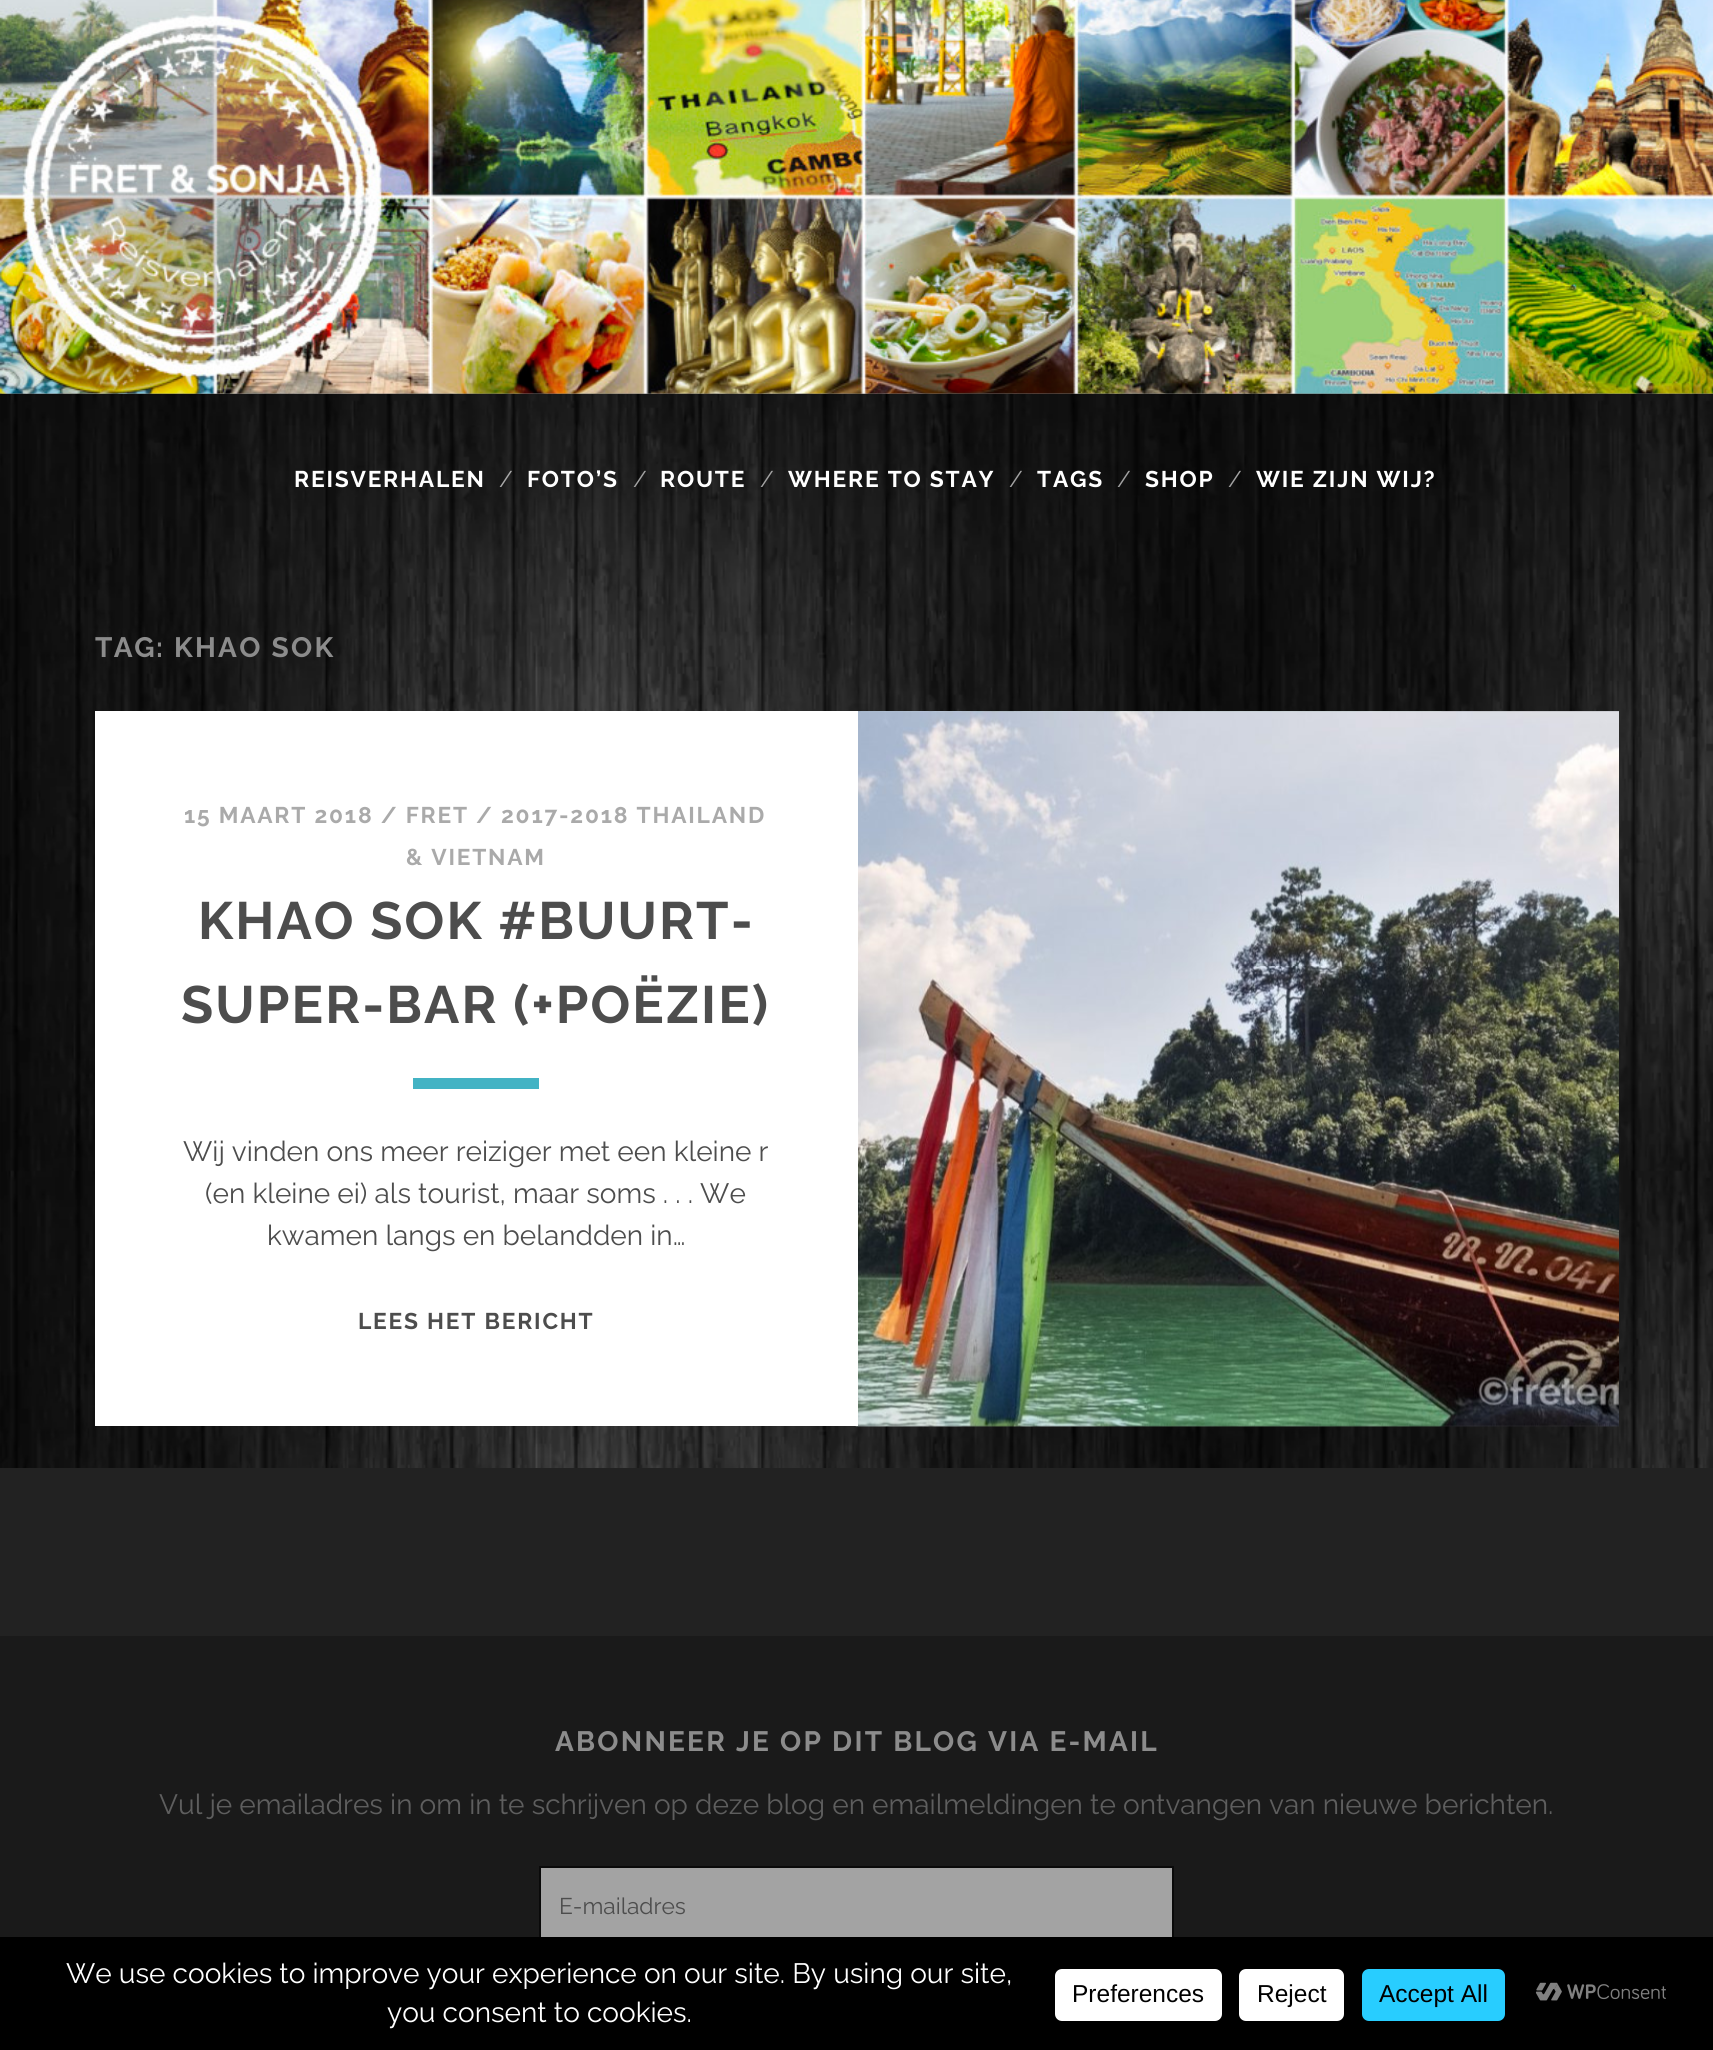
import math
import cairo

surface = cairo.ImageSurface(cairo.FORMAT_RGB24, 1713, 2050)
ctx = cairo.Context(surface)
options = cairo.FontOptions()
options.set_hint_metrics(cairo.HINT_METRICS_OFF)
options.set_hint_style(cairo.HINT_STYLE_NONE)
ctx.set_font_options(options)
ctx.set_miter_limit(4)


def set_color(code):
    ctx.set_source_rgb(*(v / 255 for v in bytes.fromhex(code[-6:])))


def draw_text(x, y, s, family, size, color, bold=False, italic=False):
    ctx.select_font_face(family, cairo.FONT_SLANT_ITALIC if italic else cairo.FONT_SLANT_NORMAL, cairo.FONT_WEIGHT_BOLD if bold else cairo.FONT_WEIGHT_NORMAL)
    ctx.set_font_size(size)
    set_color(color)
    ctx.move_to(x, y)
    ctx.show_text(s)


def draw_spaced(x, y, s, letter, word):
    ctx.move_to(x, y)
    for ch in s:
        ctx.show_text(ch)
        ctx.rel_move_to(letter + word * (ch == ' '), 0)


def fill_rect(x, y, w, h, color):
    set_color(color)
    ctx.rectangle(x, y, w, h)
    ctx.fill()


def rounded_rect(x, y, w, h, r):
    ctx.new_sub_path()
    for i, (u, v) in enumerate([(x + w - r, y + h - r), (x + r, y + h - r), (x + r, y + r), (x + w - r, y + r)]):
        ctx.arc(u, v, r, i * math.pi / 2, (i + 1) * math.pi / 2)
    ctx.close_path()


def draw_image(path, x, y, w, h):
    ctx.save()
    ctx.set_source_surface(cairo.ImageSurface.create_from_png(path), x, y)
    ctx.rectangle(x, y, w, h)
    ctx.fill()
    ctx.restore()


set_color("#ffffff")
ctx.paint()
draw_image("assets/img1.png", 0, 0, 1713, 394)
draw_image("assets/img2.png", 0, 393, 1713, 1075)
ctx.select_font_face("Raleway", cairo.FONT_SLANT_NORMAL, cairo.FONT_WEIGHT_BOLD)
ctx.set_font_size(22.75)
set_color("#ffffff")
draw_spaced(294, 487, "REISVERHALEN", 1.8, 0)
draw_text(499, 487, "/", "Raleway", 22.75, "#aaaaaa")
ctx.select_font_face("Raleway", cairo.FONT_SLANT_NORMAL, cairo.FONT_WEIGHT_BOLD)
set_color("#ffffff")
draw_spaced(527, 487, "FOTO’S", 1.8, 0)
draw_text(633, 487, "/", "Raleway", 22.75, "#a2a2a2")
ctx.select_font_face("Raleway", cairo.FONT_SLANT_NORMAL, cairo.FONT_WEIGHT_BOLD)
set_color("#ffffff")
draw_spaced(660, 487, "ROUTE", 1.8, 0)
draw_text(760, 487, "/", "Raleway", 22.75, "#a2a2a2")
ctx.select_font_face("Raleway", cairo.FONT_SLANT_NORMAL, cairo.FONT_WEIGHT_BOLD)
set_color("#ffffff")
draw_spaced(788, 487, "WHERE TO STAY", 1.8, 0)
draw_text(1009, 487, "/", "Raleway", 22.75, "#a2a2a2")
ctx.select_font_face("Raleway", cairo.FONT_SLANT_NORMAL, cairo.FONT_WEIGHT_BOLD)
set_color("#ffffff")
draw_spaced(1037, 487, "TAGS", 1.8, 0)
draw_text(1117, 487, "/", "Raleway", 22.75, "#a2a2a2")
ctx.select_font_face("Raleway", cairo.FONT_SLANT_NORMAL, cairo.FONT_WEIGHT_BOLD)
set_color("#ffffff")
draw_spaced(1145, 487, "SHOP", 1.8, 0)
draw_text(1228, 487, "/", "Raleway", 22.75, "#a2a2a2")
ctx.select_font_face("Raleway", cairo.FONT_SLANT_NORMAL, cairo.FONT_WEIGHT_BOLD)
set_color("#ffffff")
draw_spaced(1256, 487, "WIE ZIJN WIJ?", 1.8, 0)
ctx.set_font_size(28)
set_color("#8c8c8c")
draw_spaced(95, 657, "TAG:", 1.5, 0)
draw_spaced(174, 657, "KHAO SOK", 2.25, 0)
draw_image("assets/img3.png", 855, 711, 764, 716)
fill_rect(95, 711, 763, 715, "#ffffff")
ctx.set_font_size(22.75)
set_color("#aaaaaa")
draw_spaced(184, 823, "15 MAART 2018 / FRET / 2017-2018 THAILAND", 1.8, 0)
draw_spaced(406, 865, "& VIETNAM", 1.8, 0)
ctx.set_font_size(52.5)
set_color("#4d4d4d")
draw_spaced(198, 939, "KHAO SOK #BUURT-", 2.1, 0)
draw_spaced(181, 1023, "SUPER-BAR (+POËZIE)", 2.1, 0)
fill_rect(413, 1078, 126, 11, "#43b3c4")
draw_text(183, 1161, "Wij vinden ons meer reiziger met een kleine r", "Raleway", 28, "#4d4d4d")
draw_text(205, 1203, "(en kleine ei) als tourist, maar soms . . . We", "Raleway", 28, "#4d4d4d")
draw_text(267, 1245, "kwamen langs en belandden in…", "Raleway", 28, "#4d4d4d")
ctx.select_font_face("Raleway", cairo.FONT_SLANT_NORMAL, cairo.FONT_WEIGHT_BOLD)
ctx.set_font_size(22.75)
draw_spaced(358, 1329, "LEES HET BERICHT", 1.8, 0)
fill_rect(0, 1468, 1713, 168, "#222222")
fill_rect(0, 1636, 1713, 301, "#1a1a1a")
ctx.set_font_size(28)
set_color("#8c8c8c")
draw_spaced(555, 1751, "ABONNEER JE OP DIT BLOG VIA E-MAIL", 2.25, 0)
draw_text(159, 1814, "Vul je emailadres in om in te schrijven op deze blog en emailmeldingen te ontvangen van nieuwe berichten.", "Raleway", 28, "#5e5e5e")
fill_rect(541, 1868, 631, 69, "#a3a3a3")
ctx.rectangle(540, 1867, 633, 80)
set_color("#0a0a0a")
ctx.stroke()
draw_text(559, 1914, "E-mailadres", "Raleway", 22.75, "#4d4d4d")
fill_rect(0, 1937, 1713, 113, "#000000")
draw_text(66, 1983, "We use cookies to improve your experience on our site. By using our site,", "Raleway", 28, "#ffffff")
draw_text(387, 2022, "you consent to cookies.", "Raleway", 28, "#ffffff")
rounded_rect(1055, 1969, 167, 52, 7)
ctx.fill()
draw_text(1072, 2002, "Preferences", "Liberation Sans", 24.5, "#000000")
set_color("#ffffff")
rounded_rect(1239, 1969, 105, 52, 7)
ctx.fill()
draw_text(1257, 2002, "Reject", "Liberation Sans", 24.5, "#000000")
set_color("#28cdff")
rounded_rect(1362, 1969, 143, 52, 7)
ctx.fill()
draw_text(1379, 2002, "Accept All", "Liberation Sans", 24.5, "#000000")
draw_image("assets/img4.png", 1535, 1982, 131, 19)
surface.write_to_png("output.png")
